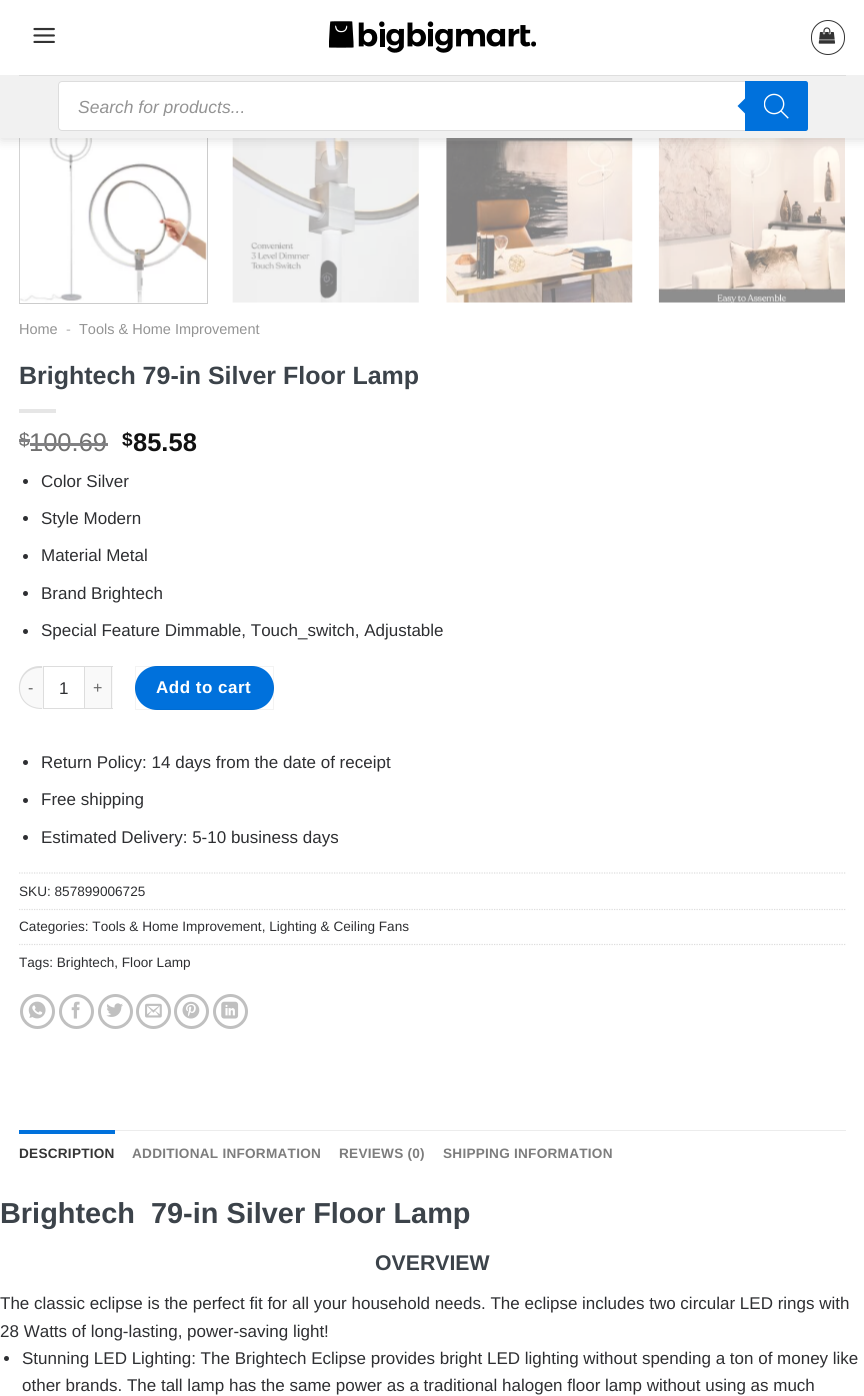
import math
import cairo

surface = cairo.ImageSurface(cairo.FORMAT_RGB24, 864, 1396)
ctx = cairo.Context(surface)
options = cairo.FontOptions()
options.set_hint_metrics(cairo.HINT_METRICS_OFF)
options.set_hint_style(cairo.HINT_STYLE_NONE)
ctx.set_font_options(options)
ctx.set_miter_limit(4)


def set_color(code):
    ctx.set_source_rgb(*(v / 255 for v in bytes.fromhex(code[-6:])))


def draw_text(x, y, s, family, size, color, bold=False, italic=False):
    ctx.select_font_face(family, cairo.FONT_SLANT_ITALIC if italic else cairo.FONT_SLANT_NORMAL, cairo.FONT_WEIGHT_BOLD if bold else cairo.FONT_WEIGHT_NORMAL)
    ctx.set_font_size(size)
    set_color(color)
    ctx.move_to(x, y)
    ctx.show_text(s)


def draw_spaced(x, y, s, letter, word):
    ctx.move_to(x, y)
    for ch in s:
        ctx.show_text(ch)
        ctx.rel_move_to(letter + word * (ch == ' '), 0)


def fill_rect(x, y, w, h, color):
    set_color(color)
    ctx.rectangle(x, y, w, h)
    ctx.fill()


def rounded_rect(x, y, w, h, r):
    ctx.new_sub_path()
    for i, (u, v) in enumerate([(x + w - r, y + h - r), (x + r, y + h - r), (x + r, y + r), (x + w - r, y + r)]):
        ctx.arc(u, v, r, i * math.pi / 2, (i + 1) * math.pi / 2)
    ctx.close_path()


def draw_shadow(x, y, w, h, r, blur, alpha):
    ctx.push_group_with_content(cairo.CONTENT_ALPHA)
    ctx.set_operator(cairo.OPERATOR_SOURCE)
    for i in range(15, -16, -2):
        e = blur * i / 6
        if min(w, h) + 2 * e > 0:
            ctx.set_source_rgba(0, 0, 0, alpha * math.erfc((i - 1) / 8.5) / 2)
            rounded_rect(x - e, y - e, w + 2 * e, h + 2 * e, max(0, min(r + e + blur * .6, min(w, h) / 2 + e)))
            ctx.fill()
    ctx.mask(ctx.pop_group())


def draw_image(path, x, y, w, h):
    ctx.save()
    ctx.set_source_surface(cairo.ImageSurface.create_from_png(path), x, y)
    ctx.rectangle(x, y, w, h)
    ctx.fill()
    ctx.restore()


set_color("#ffffff")
ctx.paint()
ctx.rectangle(19.5, 121.5, 188, 182)
set_color("#cccccc")
ctx.set_line_width(1)
ctx.stroke()
draw_image("assets/img5.png", 19, 138, 188, 165)
draw_image("assets/img6.png", 232, 138, 187, 165)
draw_image("assets/img7.png", 446, 138, 187, 165)
draw_image("assets/img8.png", 658, 138, 187, 165)
set_color("#000000")
draw_shadow(1, 1, 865, 138, 0, 6, 0.15)
fill_rect(0, 0, 864, 75, "#ffffff")
draw_image("assets/img1.png", 33, 27, 22, 16)
draw_image("assets/img2.png", 329, 21, 207, 32)
rounded_rect(811.5, 20.5, 33, 34, 16.5)
set_color("#333333")
ctx.stroke()
draw_image("assets/img3.png", 818, 27, 18, 17)
fill_rect(0, 75, 864, 63, "#f1f1f1")
fill_rect(19, 75, 827, 1, "#dedede")
set_color("#ffffff")
rounded_rect(58.5, 81.5, 749, 49, 3.5)
ctx.fill_preserve()
set_color("#dddddd")
ctx.stroke()
ctx.save()
ctx.rectangle(78, 96, 710, 20)
ctx.clip()
draw_text(78, 113, "Search for products...", "Liberation Sans", 17.5, "#949494", italic=True)
ctx.restore()
set_color("#0071dc")
ctx.new_path()
ctx.move_to(745, 81)
ctx.line_to(805.5, 81)
ctx.curve_to(807, 81, 808, 82, 808, 83.5)
ctx.line_to(808, 128.5)
ctx.curve_to(808, 130, 807, 131, 805.5, 131)
ctx.line_to(745, 131)
ctx.close_path()
ctx.fill()
ctx.new_path()
ctx.move_to(747.5, 96)
ctx.line_to(747.5, 116)
ctx.line_to(737.5, 106)
ctx.close_path()
ctx.fill()
draw_image("assets/img4.png", 764, 93, 25, 26)
draw_text(19, 334, "Home", "Liberation Sans", 14.5, "#949494")
draw_text(66, 334, "-", "Liberation Sans", 14.5, "#b2b2b2")
draw_text(79, 334, "Tools & Home Improvement", "Liberation Sans", 14.5, "#949494")
draw_text(19, 384, "Brightech 79-in Silver Floor Lamp", "Liberation Sans", 25, "#3c434a", bold=True)
fill_rect(19, 409, 37, 4, "#e6e6e6")
draw_text(19, 446, "$", "Liberation Sans", 19, "#707070")
fill_rect(19, 439, 11, 3, "#828284")
draw_text(29, 451, "100.69", "Liberation Sans", 25.5, "#707070")
fill_rect(30, 443, 78, 3, "#828284")
draw_text(122, 446, "$", "Liberation Sans", 19, "#111111", bold=True)
draw_text(133, 451, "85.58", "Liberation Sans", 25.5, "#111111", bold=True)
set_color("#2e2f32")
ctx.new_path()
ctx.arc(25.5, 481.5, 2.5, 0, 2 * math.pi)
ctx.fill()
draw_text(41, 487, "Color Silver", "Liberation Sans", 17, "#2e2f32")
ctx.new_path()
ctx.arc(25.5, 518.5, 2.5, 0, 2 * math.pi)
ctx.fill()
draw_text(41, 524, "Style Modern", "Liberation Sans", 17, "#2e2f32")
ctx.new_path()
ctx.arc(25.5, 556.5, 2.5, 0, 2 * math.pi)
ctx.fill()
draw_text(41, 561, "Material Metal", "Liberation Sans", 17, "#2e2f32")
ctx.new_path()
ctx.arc(25.5, 593.5, 2.5, 0, 2 * math.pi)
ctx.fill()
draw_text(41, 599, "Brand Brightech", "Liberation Sans", 17, "#2e2f32")
ctx.new_path()
ctx.arc(25.5, 631.5, 2.5, 0, 2 * math.pi)
ctx.fill()
draw_text(41, 636, "Special Feature Dimmable, Touch_switch, Adjustable", "Liberation Sans", 17, "#2e2f32")
set_color("#f9f9f9")
ctx.new_path()
ctx.move_to(40, 666)
ctx.line_to(43, 666)
ctx.line_to(43, 709)
ctx.line_to(40, 709)
ctx.curve_to(28.5, 709, 19, 699.5, 19, 688)
ctx.line_to(19, 687)
ctx.curve_to(19, 675.5, 28.5, 666, 40, 666)
ctx.close_path()
ctx.fill()
set_color("#dddddd")
ctx.set_fill_rule(cairo.FILL_RULE_EVEN_ODD)
ctx.new_path()
ctx.move_to(40, 666)
ctx.line_to(42, 666)
ctx.line_to(42, 709)
ctx.curve_to(10, 709, 13, 666, 40, 666)
ctx.close_path()
ctx.move_to(40, 668)
ctx.line_to(42, 668)
ctx.line_to(42, 708)
ctx.curve_to(12, 708, 14, 668, 40, 668)
ctx.close_path()
ctx.fill()
draw_text(28, 693, "-", "Liberation Sans", 16, "#666666")
ctx.rectangle(43.5, 666.5, 41, 42)
set_color("#dddddd")
ctx.stroke()
draw_text(59, 694, "1", "Liberation Sans", 17, "#2e2f32")
fill_rect(85, 667, 28, 41, "#f9f9f9")
fill_rect(85, 666, 28, 1, "#dddddd")
fill_rect(111, 666, 1, 43, "#dddddd")
fill_rect(85, 708, 28, 1, "#dddddd")
draw_text(93, 693, "+", "Liberation Sans", 16, "#666666")
set_color("#0071dc")
rounded_rect(135, 666, 139, 44, 22)
ctx.fill()
ctx.rectangle(135.5, 666.5, 138, 43)
ctx.set_source_rgba(0, 0, 0, 0.05)
ctx.stroke()
ctx.select_font_face("Liberation Sans", cairo.FONT_SLANT_NORMAL, cairo.FONT_WEIGHT_BOLD)
ctx.set_font_size(17)
set_color("#ffffff")
draw_spaced(156, 693, "Add to cart", 0.5, 0)
set_color("#2e2f32")
ctx.new_path()
ctx.arc(25.5, 762.5, 2.5, 0, 2 * math.pi)
ctx.fill()
draw_text(41, 768, "Return Policy: 14 days from the date of receipt", "Liberation Sans", 17, "#2e2f32")
ctx.new_path()
ctx.arc(25.5, 800.5, 2.5, 0, 2 * math.pi)
ctx.fill()
draw_text(41, 805, "Free shipping", "Liberation Sans", 17, "#2e2f32")
ctx.new_path()
ctx.arc(25.5, 837.5, 2.5, 0, 2 * math.pi)
ctx.fill()
draw_text(41, 843, "Estimated Delivery: 5-10 business days", "Liberation Sans", 17, "#2e2f32")
ctx.new_path()
ctx.move_to(19, 873)
ctx.line_to(846, 873)
set_color("#dddddd")
ctx.set_line_width(1.2)
ctx.set_dash([1.25, 1.25])
ctx.stroke()
draw_text(19, 896, "SKU: 857899006725", "Liberation Sans", 13.6, "#2e2f32")
ctx.new_path()
ctx.move_to(19, 909.5)
ctx.line_to(846, 909.5)
set_color("#dddddd")
ctx.stroke()
draw_text(19, 931, "Categories: Tools & Home Improvement, Lighting & Ceiling Fans", "Liberation Sans", 13.6, "#2e2f32")
ctx.new_path()
ctx.move_to(19, 944.5)
ctx.line_to(846, 944.5)
set_color("#dddddd")
ctx.stroke()
draw_text(19, 967, "Tags: Brightech, Floor Lamp", "Liberation Sans", 13.6, "#2e2f32")
ctx.new_path()
ctx.arc(37.5, 1011.5, 16, 0, 2 * math.pi)
set_color("#c0c0c0")
ctx.set_line_width(3)
ctx.set_dash([])
ctx.stroke()
draw_image("assets/img9.png", 28, 1001, 18, 18)
ctx.arc(76.5, 1011.5, 16, 0, 2 * math.pi)
ctx.stroke()
draw_image("assets/img10.png", 71, 1001, 9, 18)
ctx.arc(115.5, 1011.5, 16, 0, 2 * math.pi)
ctx.stroke()
draw_image("assets/img11.png", 106, 1003, 17, 14)
ctx.arc(153.5, 1011.5, 16, 0, 2 * math.pi)
ctx.stroke()
draw_image("assets/img12.png", 145, 1003, 17, 15)
ctx.arc(191.5, 1011.5, 16, 0, 2 * math.pi)
ctx.stroke()
draw_image("assets/img13.png", 182, 1001, 18, 18)
ctx.arc(230.5, 1011.5, 16, 0, 2 * math.pi)
ctx.stroke()
draw_image("assets/img14.png", 221, 1001, 18, 18)
fill_rect(115, 1130, 731, 1, "#ececec")
fill_rect(19, 1130, 96, 4, "#0071dc")
ctx.select_font_face("Liberation Sans", cairo.FONT_SLANT_NORMAL, cairo.FONT_WEIGHT_BOLD)
set_color("#353535")
draw_spaced(19, 1158, "DESCRIPTION", 0.25, 0)
set_color("#7d7d7d")
draw_spaced(132, 1158, "ADDITIONAL INFORMATION", 0.25, 0)
draw_spaced(339, 1158, "REVIEWS (0)", 0.25, 0)
draw_spaced(443, 1158, "SHIPPING INFORMATION", 0.25, 0)
draw_text(0, 1223, "Brightech  79-in Silver Floor Lamp", "Liberation Sans", 28.9, "#3c434a", bold=True)
draw_text(375, 1270, "OVERVIEW", "Liberation Sans", 21.25, "#3c434a", bold=True)
draw_text(0, 1309, "The classic eclipse is the perfect fit for all your household needs. The eclipse includes two circular LED rings with", "Liberation Sans", 17, "#2e2f32")
draw_text(0, 1337, "28 Watts of long-lasting, power-saving light!", "Liberation Sans", 17, "#2e2f32")
ctx.new_path()
ctx.arc(6.5, 1358.5, 2.5, 0, 2 * math.pi)
ctx.fill()
draw_text(22, 1364, "Stunning LED Lighting: The Brightech Eclipse provides bright LED lighting without spending a ton of money like", "Liberation Sans", 17, "#2e2f32")
draw_text(22, 1391, "other brands. The tall lamp has the same power as a traditional halogen floor lamp without using as much", "Liberation Sans", 17, "#2e2f32")
surface.write_to_png("output.png")
